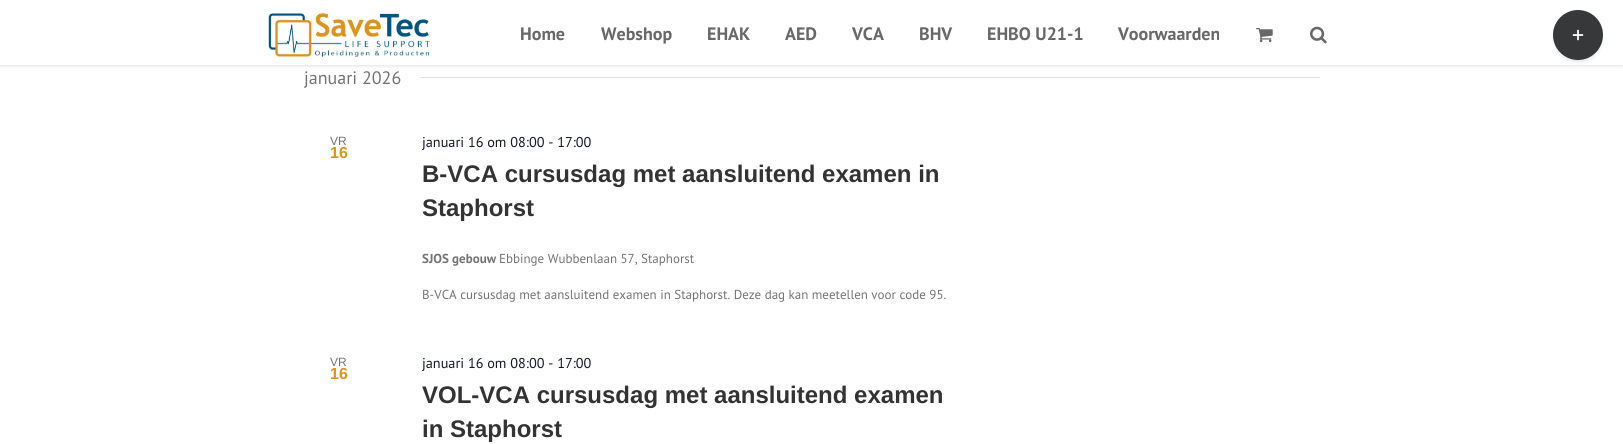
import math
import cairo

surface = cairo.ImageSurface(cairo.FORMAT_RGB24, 1623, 444)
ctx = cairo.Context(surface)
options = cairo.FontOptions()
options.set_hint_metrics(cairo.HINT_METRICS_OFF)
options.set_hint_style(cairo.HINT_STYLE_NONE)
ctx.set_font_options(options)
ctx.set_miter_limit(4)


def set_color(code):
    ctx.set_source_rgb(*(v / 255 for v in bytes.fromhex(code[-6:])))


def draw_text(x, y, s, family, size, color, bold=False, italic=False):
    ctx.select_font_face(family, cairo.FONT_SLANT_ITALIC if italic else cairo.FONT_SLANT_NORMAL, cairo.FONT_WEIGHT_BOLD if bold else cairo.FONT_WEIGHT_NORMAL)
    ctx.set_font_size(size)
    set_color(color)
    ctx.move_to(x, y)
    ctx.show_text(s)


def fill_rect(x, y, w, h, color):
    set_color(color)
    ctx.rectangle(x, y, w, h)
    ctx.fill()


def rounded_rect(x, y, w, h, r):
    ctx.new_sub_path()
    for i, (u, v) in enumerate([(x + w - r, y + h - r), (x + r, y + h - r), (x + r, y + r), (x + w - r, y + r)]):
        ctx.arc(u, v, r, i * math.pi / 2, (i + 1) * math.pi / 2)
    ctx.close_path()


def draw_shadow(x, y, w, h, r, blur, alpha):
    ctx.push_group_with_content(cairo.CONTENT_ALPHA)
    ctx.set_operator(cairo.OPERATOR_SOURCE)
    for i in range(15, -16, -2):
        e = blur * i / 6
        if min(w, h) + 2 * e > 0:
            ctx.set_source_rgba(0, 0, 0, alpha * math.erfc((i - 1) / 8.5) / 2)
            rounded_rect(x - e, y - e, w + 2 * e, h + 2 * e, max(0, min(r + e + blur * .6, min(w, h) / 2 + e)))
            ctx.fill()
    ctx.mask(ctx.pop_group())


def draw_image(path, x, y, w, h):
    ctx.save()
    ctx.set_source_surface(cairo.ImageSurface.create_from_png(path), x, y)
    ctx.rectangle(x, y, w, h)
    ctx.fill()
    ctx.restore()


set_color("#ffffff")
ctx.paint()
set_color("#000000")
draw_shadow(0, 1, 1623, 65, 0, 1.5, 0.12)
fill_rect(0, 0, 1623, 65, "#ffffff")
draw_image("assets/img1.png", 268, 13, 162, 44)
draw_text(520, 40, "Home", "PT Sans", 18, "#686868", bold=True)
draw_text(601, 40, "Webshop", "PT Sans", 18, "#686868", bold=True)
draw_text(707, 40, "EHAK", "PT Sans", 18, "#686868", bold=True)
draw_text(785, 40, "AED", "PT Sans", 18, "#686868", bold=True)
draw_text(852, 40, "VCA", "PT Sans", 18, "#686868", bold=True)
draw_text(919, 40, "BHV", "PT Sans", 18, "#686868", bold=True)
draw_text(987, 40, "EHBO U21-1", "PT Sans", 18, "#686868", bold=True)
draw_text(1118, 40, "Voorwaarden", "PT Sans", 18, "#686868", bold=True)
draw_image("assets/img2.png", 1256, 28, 17, 15)
draw_image("assets/img3.png", 1310, 26, 17, 18)
set_color("#000000")
draw_shadow(1555, 15, 46, 46, 23, 2.5, 0.14)
set_color("#363839")
ctx.arc(1578, 35, 25, 0, 2 * math.pi)
ctx.fill()
draw_image("assets/img4.png", 1572, 29, 12, 12)
draw_text(304, 84, "januari 2026", "PT Sans", 18, "#747474")
fill_rect(421, 77, 899, 1, "#e0dede")
draw_text(330, 145, "VR", "Liberation Sans", 12, "#747474")
draw_text(330, 158, "16", "Liberation Sans", 16, "#dc931e", bold=True)
draw_text(422, 147, "januari 16 om 08:00 - 17:00", "PT Sans", 14.25, "#141827")
draw_text(422, 182, "B-VCA cursusdag met aansluitend examen in", "Liberation Sans", 24, "#333333", bold=True)
draw_text(422, 216, "Staphorst", "Liberation Sans", 24, "#333333", bold=True)
draw_text(422, 263, "SJOS gebouw", "PT Sans", 13, "#747474", bold=True)
draw_text(499, 263, "Ebbinge Wubbenlaan 57, Staphorst", "PT Sans", 13, "#747474")
draw_text(422, 299, "B-VCA cursusdag met aansluitend examen in Staphorst. Deze dag kan meetellen voor code 95.", "PT Sans", 13, "#747474")
draw_text(330, 366, "VR", "Liberation Sans", 12, "#747474")
draw_text(330, 379, "16", "Liberation Sans", 16, "#dc931e", bold=True)
draw_text(422, 368, "januari 16 om 08:00 - 17:00", "PT Sans", 14.25, "#141827")
draw_text(422, 403, "VOL-VCA cursusdag met aansluitend examen", "Liberation Sans", 24, "#333333", bold=True)
draw_text(422, 437, "in Staphorst", "Liberation Sans", 24, "#333333", bold=True)
surface.write_to_png("output.png")
